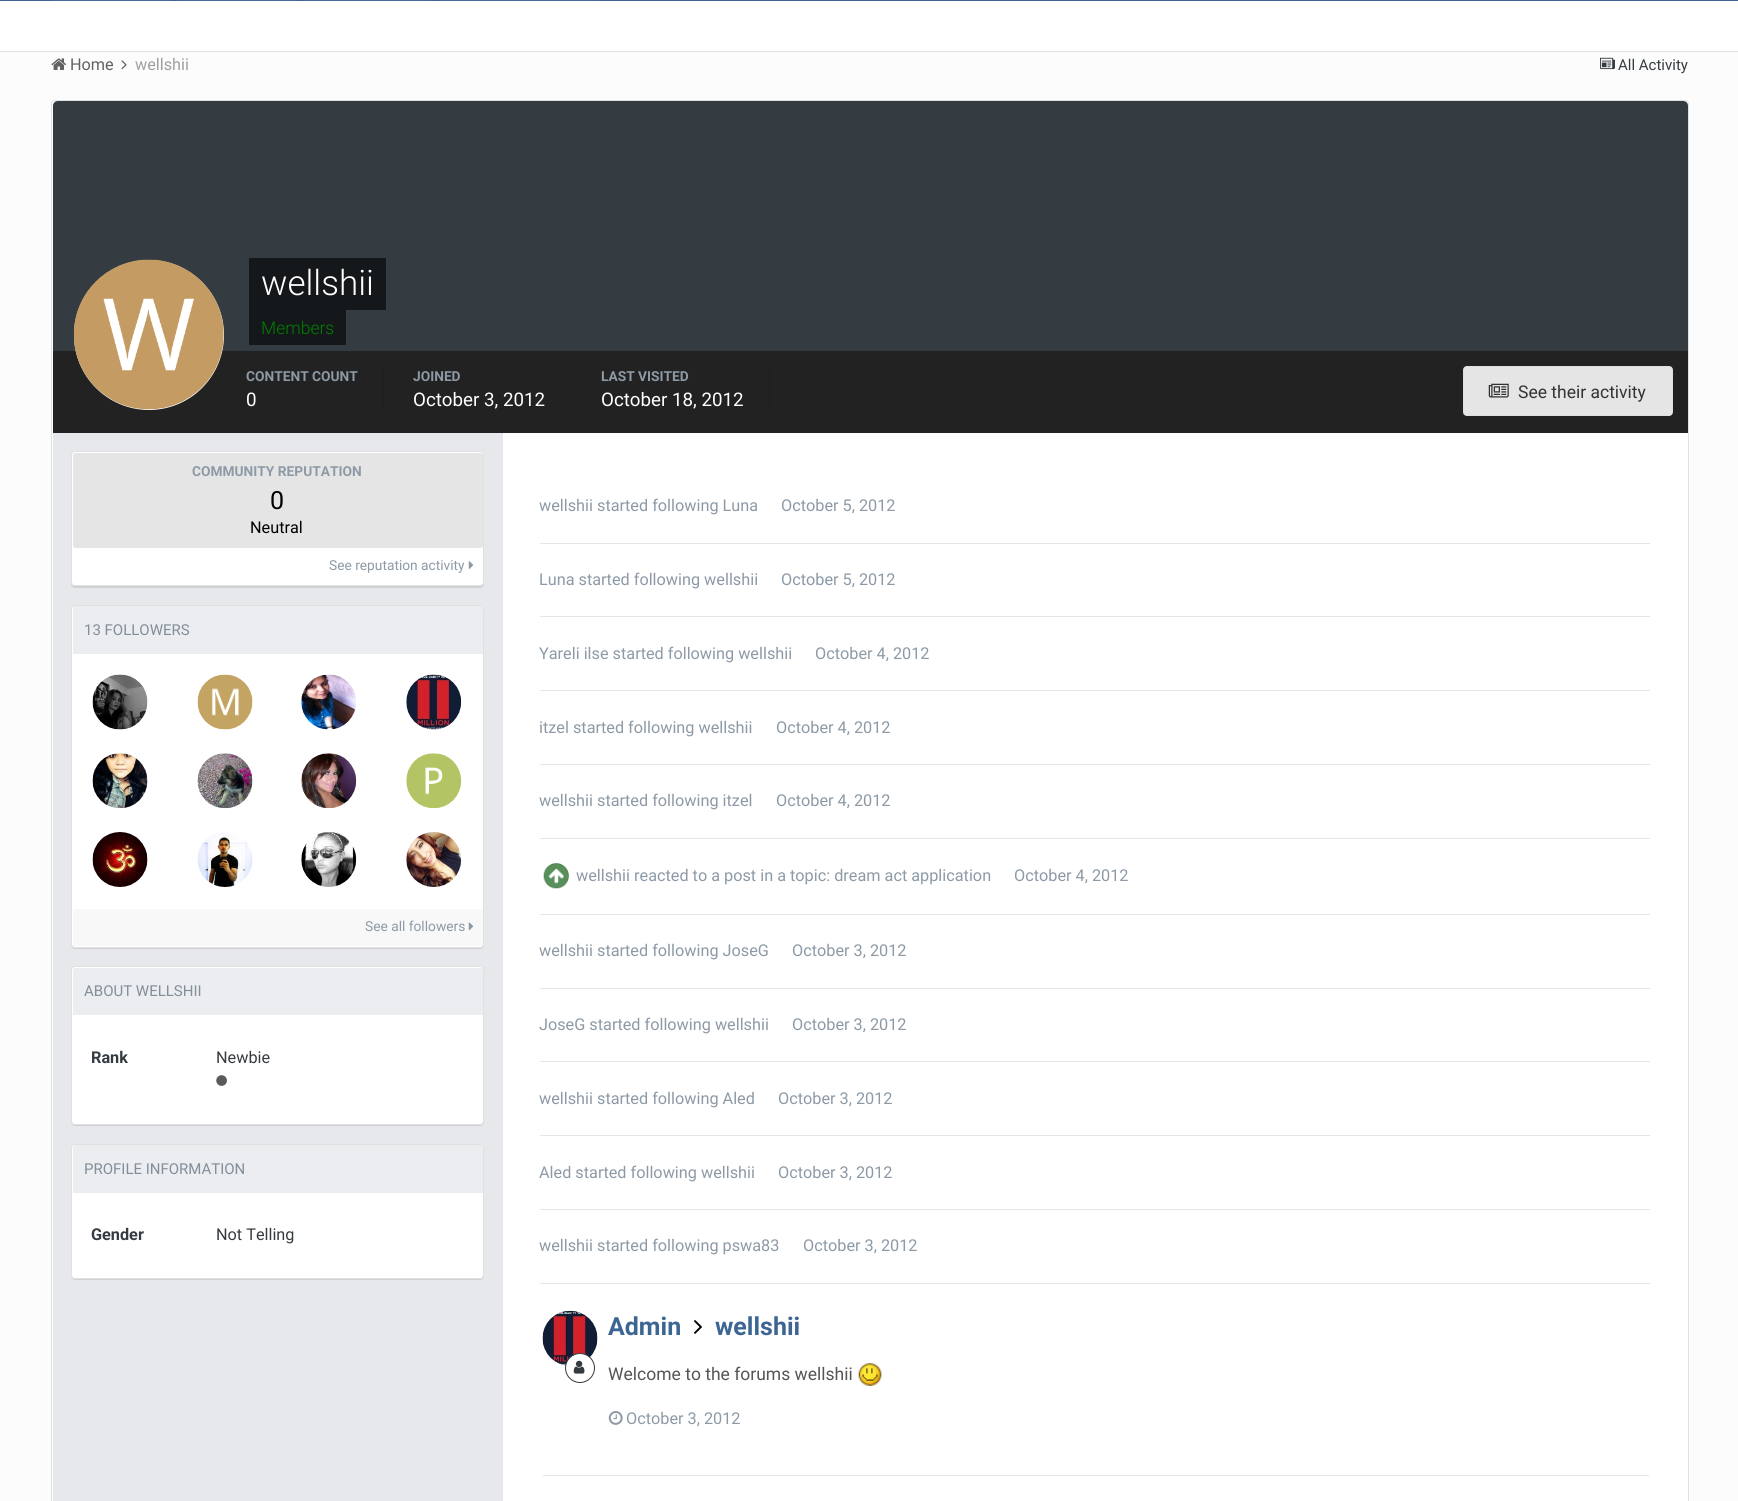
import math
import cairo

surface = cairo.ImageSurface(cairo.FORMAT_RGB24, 1738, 1501)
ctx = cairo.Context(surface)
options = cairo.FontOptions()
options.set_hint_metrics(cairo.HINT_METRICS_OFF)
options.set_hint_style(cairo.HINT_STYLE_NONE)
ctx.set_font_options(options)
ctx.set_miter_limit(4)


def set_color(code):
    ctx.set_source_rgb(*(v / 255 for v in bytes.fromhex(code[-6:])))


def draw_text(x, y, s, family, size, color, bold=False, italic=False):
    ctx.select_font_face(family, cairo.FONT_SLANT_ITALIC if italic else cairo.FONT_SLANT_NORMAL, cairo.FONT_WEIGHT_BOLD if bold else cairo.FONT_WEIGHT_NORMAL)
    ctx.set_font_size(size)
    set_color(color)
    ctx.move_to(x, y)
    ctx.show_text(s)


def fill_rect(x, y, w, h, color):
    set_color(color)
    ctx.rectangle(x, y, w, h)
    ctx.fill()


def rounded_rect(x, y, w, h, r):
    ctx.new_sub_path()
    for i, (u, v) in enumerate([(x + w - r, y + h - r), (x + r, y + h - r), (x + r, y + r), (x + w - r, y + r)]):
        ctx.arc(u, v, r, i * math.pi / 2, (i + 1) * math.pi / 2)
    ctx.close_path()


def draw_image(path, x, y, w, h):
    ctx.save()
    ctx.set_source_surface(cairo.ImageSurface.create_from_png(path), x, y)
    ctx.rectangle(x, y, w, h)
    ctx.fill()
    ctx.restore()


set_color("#fcfcfc")
ctx.paint()
fill_rect(0, 51, 1738, 1, "#e3e3e3")
fill_rect(0, 0, 1738, 1, "#3d6594")
fill_rect(0, 1, 1738, 50, "#ffffff")
fill_rect(51, 0, 120, 1, "#456b98")
fill_rect(178, 0, 120, 1, "#456b98")
fill_rect(304, 0, 127, 1, "#456b98")
fill_rect(438, 0, 161, 1, "#456b98")
draw_image("assets/img1.png", 51, 58, 16, 12)
draw_text(70, 70, "Home", "Roboto", 16.25, "#616161")
draw_image("assets/img2.png", 121, 60, 6, 10)
draw_text(135, 70, "wellshii", "Roboto", 16.25, "#9f9f9f")
draw_image("assets/img3.png", 1600, 57, 15, 13)
draw_text(1618, 70, "All Activity", "Roboto", 15, "#353c41")
set_color("#ffffff")
rounded_rect(51.5, 100.5, 1637, 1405, 3.5)
ctx.fill_preserve()
set_color("#e0e0e0")
ctx.set_line_width(1)
ctx.stroke()
set_color("#353c41")
ctx.new_path()
ctx.move_to(58, 101)
ctx.line_to(1683, 101)
ctx.curve_to(1686, 101, 1688, 103, 1688, 106)
ctx.line_to(1688, 351)
ctx.line_to(53, 351)
ctx.line_to(53, 106)
ctx.curve_to(53, 103, 55, 101, 58, 101)
ctx.close_path()
ctx.fill()
fill_rect(53, 351, 1635, 82, "#222222")
set_color("#ffffff")
ctx.arc(149, 335, 75, 0, 2 * math.pi)
ctx.fill()
draw_image("assets/img4.png", 73, 259, 151, 151)
fill_rect(249, 258, 137, 52, "#15181a")
draw_text(261, 295, "wellshii", "Roboto Light", 35, "#ffffff")
fill_rect(249, 310, 97, 35, "#15181a")
draw_text(261, 334, "Members", "Roboto Light", 17.5, "#008000")
fill_rect(383, 366, 1, 45, "#1f1f1f")
draw_text(246, 381, "CONTENT COUNT", "Roboto", 13.75, "#8d9aa6", bold=True)
draw_text(246, 406, "0", "Roboto", 18.75, "#ffffff")
fill_rect(570, 366, 1, 45, "#1f1f1f")
draw_text(413, 381, "JOINED", "Roboto", 13.75, "#8d9aa6", bold=True)
draw_text(413, 406, "October 3, 2012", "Roboto", 18.75, "#ffffff")
fill_rect(769, 366, 1, 45, "#1f1f1f")
draw_text(601, 381, "LAST VISITED", "Roboto", 13.75, "#8d9aa6", bold=True)
draw_text(601, 406, "October 18, 2012", "Roboto", 18.75, "#ffffff")
set_color("#e5e5e5")
rounded_rect(1463, 366, 210, 50, 4)
ctx.fill()
ctx.rectangle(1463.5, 366.5, 209, 49)
ctx.set_source_rgba(0, 0, 0, 0.03)
ctx.stroke()
draw_image("assets/img5.png", 1488, 383, 21, 15)
draw_text(1518, 398, "See their activity", "Roboto", 17.5, "#333333")
fill_rect(53, 433, 450, 1068, "#e6e8eb")
set_color("#cfd1d4")
ctx.new_path()
ctx.move_to(71, 456)
ctx.line_to(71, 584)
ctx.curve_to(71, 586, 73, 588, 75, 588)
ctx.line_to(480, 588)
ctx.curve_to(482, 588, 484, 586, 484, 584)
ctx.line_to(484, 456)
ctx.line_to(484, 582)
ctx.curve_to(484, 585, 482, 586, 480, 586)
ctx.line_to(75, 586)
ctx.curve_to(73, 586, 71, 585, 71, 582)
ctx.close_path()
ctx.fill()
set_color("#ffffff")
rounded_rect(71.5, 451.5, 412, 134, 3.5)
ctx.fill_preserve()
set_color("#e0e0e0")
ctx.stroke()
set_color("#e5e5e5")
rounded_rect(73, 453, 410, 95, 2.5)
ctx.fill()
draw_text(192, 476, "COMMUNITY REPUTATION", "Roboto", 13.75, "#8d9aa6", bold=True)
draw_text(270, 509, "0", "Roboto", 25, "#000000")
draw_text(250, 533, "Neutral", "Roboto", 16.25, "#000000")
draw_text(329, 570, "See reputation activity", "Roboto", 13.75, "#8d9aa6")
draw_image("assets/img6.png", 468, 561, 6, 8)
set_color("#cfd1d4")
ctx.new_path()
ctx.move_to(71, 609)
ctx.line_to(71, 945)
ctx.curve_to(71, 947, 73, 949, 75, 949)
ctx.line_to(480, 949)
ctx.curve_to(482, 949, 484, 947, 484, 945)
ctx.line_to(484, 609)
ctx.line_to(484, 944)
ctx.curve_to(484, 946, 482, 948, 480, 948)
ctx.line_to(75, 948)
ctx.curve_to(73, 948, 71, 946, 71, 944)
ctx.close_path()
ctx.fill()
set_color("#ffffff")
rounded_rect(71.5, 605.5, 412, 342, 3.5)
ctx.fill_preserve()
set_color("#e0e0e0")
ctx.stroke()
set_color("#ebedf0")
ctx.new_path()
ctx.move_to(75.5, 606)
ctx.line_to(480.5, 606)
ctx.curve_to(482, 606, 483, 607, 483, 608.5)
ctx.line_to(483, 654)
ctx.line_to(73, 654)
ctx.line_to(73, 608.5)
ctx.curve_to(73, 607, 74, 606, 75.5, 606)
ctx.close_path()
ctx.fill()
draw_text(84, 635, "13 FOLLOWERS", "Roboto", 15, "#828e99")
draw_image("assets/img7.png", 92, 674, 56, 56)
draw_image("assets/img8.png", 197, 674, 56, 56)
draw_image("assets/img9.png", 301, 674, 55, 56)
draw_image("assets/img10.png", 406, 674, 56, 56)
draw_image("assets/img11.png", 92, 753, 56, 56)
draw_image("assets/img12.png", 197, 753, 56, 56)
draw_image("assets/img13.png", 301, 753, 56, 56)
draw_image("assets/img14.png", 406, 753, 56, 56)
draw_image("assets/img15.png", 92, 832, 56, 55)
draw_image("assets/img16.png", 197, 832, 56, 55)
draw_image("assets/img17.png", 301, 832, 56, 55)
draw_image("assets/img18.png", 406, 832, 56, 55)
fill_rect(73, 909, 410, 37, "#f8f8f8")
draw_text(365, 931, "See all followers", "Roboto", 13.75, "#8d9aa6")
draw_image("assets/img19.png", 468, 922, 6, 9)
set_color("#cfd1d4")
ctx.new_path()
ctx.move_to(71, 971)
ctx.line_to(71, 1122)
ctx.curve_to(71, 1124, 73, 1126, 75, 1126)
ctx.line_to(480, 1126)
ctx.curve_to(482, 1126, 484, 1124, 484, 1122)
ctx.line_to(484, 971)
ctx.line_to(484, 1121)
ctx.curve_to(484, 1123, 482, 1125, 480, 1125)
ctx.line_to(75, 1125)
ctx.curve_to(73, 1125, 71, 1123, 71, 1121)
ctx.close_path()
ctx.fill()
set_color("#ffffff")
rounded_rect(71.5, 966.5, 412, 158, 3.5)
ctx.fill_preserve()
set_color("#e0e0e0")
ctx.stroke()
set_color("#ebedf0")
ctx.new_path()
ctx.move_to(75.5, 968)
ctx.line_to(480.5, 968)
ctx.curve_to(482, 968, 483, 969, 483, 970.5)
ctx.line_to(483, 1015)
ctx.line_to(73, 1015)
ctx.line_to(73, 970.5)
ctx.curve_to(73, 969, 74, 968, 75.5, 968)
ctx.close_path()
ctx.fill()
draw_text(84, 996, "ABOUT WELLSHII", "Roboto", 15, "#828e99")
draw_text(91, 1063, "Rank", "Roboto", 16.25, "#353c41", bold=True)
draw_text(216, 1063, "Newbie", "Roboto", 16.25, "#353c41")
draw_image("assets/img20.png", 216, 1075, 11, 11)
set_color("#cfd1d4")
ctx.new_path()
ctx.move_to(71, 1148)
ctx.line_to(71, 1276)
ctx.curve_to(71, 1278, 73, 1280, 75, 1280)
ctx.line_to(480, 1280)
ctx.curve_to(482, 1280, 484, 1278, 484, 1276)
ctx.line_to(484, 1148)
ctx.line_to(484, 1275)
ctx.curve_to(484, 1277, 482, 1279, 480, 1279)
ctx.line_to(75, 1279)
ctx.curve_to(73, 1279, 71, 1277, 71, 1275)
ctx.close_path()
ctx.fill()
set_color("#ffffff")
rounded_rect(71.5, 1144.5, 412, 134, 3.5)
ctx.fill_preserve()
set_color("#e0e0e0")
ctx.stroke()
set_color("#ebedf0")
ctx.new_path()
ctx.move_to(75.5, 1145)
ctx.line_to(480.5, 1145)
ctx.curve_to(482, 1145, 483, 1146, 483, 1147.5)
ctx.line_to(483, 1193)
ctx.line_to(73, 1193)
ctx.line_to(73, 1147.5)
ctx.curve_to(73, 1146, 74, 1145, 75.5, 1145)
ctx.close_path()
ctx.fill()
draw_text(84, 1174, "PROFILE INFORMATION", "Roboto", 15, "#828e99")
draw_text(91, 1240, "Gender", "Roboto", 16.25, "#353c41", bold=True)
draw_text(216, 1240, "Not Telling", "Roboto", 16.25, "#353c41")
fill_rect(540, 543, 1110, 1, "#e6e6e6")
draw_text(539, 511, "wellshii started following Luna", "Roboto", 16.25, "#8d9aa6")
draw_text(781, 511, "October 5, 2012", "Roboto", 16.25, "#8d9aa6")
fill_rect(540, 616, 1110, 1, "#e6e6e6")
draw_text(539, 585, "Luna started following wellshii", "Roboto", 16.25, "#8d9aa6")
draw_text(781, 585, "October 5, 2012", "Roboto", 16.25, "#8d9aa6")
fill_rect(540, 690, 1110, 1, "#e6e6e6")
draw_text(539, 659, "Yareli ilse started following wellshii", "Roboto", 16.25, "#8d9aa6")
draw_text(815, 659, "October 4, 2012", "Roboto", 16.25, "#8d9aa6")
fill_rect(540, 764, 1110, 1, "#e6e6e6")
draw_text(539, 733, "itzel started following wellshii", "Roboto", 16.25, "#8d9aa6")
draw_text(776, 733, "October 4, 2012", "Roboto", 16.25, "#8d9aa6")
fill_rect(540, 838, 1110, 1, "#e6e6e6")
draw_text(539, 806, "wellshii started following itzel", "Roboto", 16.25, "#8d9aa6")
draw_text(776, 806, "October 4, 2012", "Roboto", 16.25, "#8d9aa6")
fill_rect(540, 914, 1110, 1, "#e6e6e6")
draw_image("assets/img21.png", 543, 863, 26, 26)
draw_text(576, 881, "wellshii reacted to a post in a topic: dream act application", "Roboto", 16.25, "#8d9aa6")
draw_text(1014, 881, "October 4, 2012", "Roboto", 16.25, "#8d9aa6")
fill_rect(540, 988, 1110, 1, "#e6e6e6")
draw_text(539, 956, "wellshii started following JoseG", "Roboto", 16.25, "#8d9aa6")
draw_text(792, 956, "October 3, 2012", "Roboto", 16.25, "#8d9aa6")
fill_rect(540, 1061, 1110, 1, "#e6e6e6")
draw_text(539, 1030, "JoseG started following wellshii", "Roboto", 16.25, "#8d9aa6")
draw_text(792, 1030, "October 3, 2012", "Roboto", 16.25, "#8d9aa6")
fill_rect(540, 1135, 1110, 1, "#e6e6e6")
draw_text(539, 1104, "wellshii started following Aled", "Roboto", 16.25, "#8d9aa6")
draw_text(778, 1104, "October 3, 2012", "Roboto", 16.25, "#8d9aa6")
fill_rect(540, 1209, 1110, 1, "#e6e6e6")
draw_text(539, 1178, "Aled started following wellshii", "Roboto", 16.25, "#8d9aa6")
draw_text(778, 1178, "October 3, 2012", "Roboto", 16.25, "#8d9aa6")
fill_rect(540, 1283, 1110, 1, "#e6e6e6")
draw_text(539, 1251, "wellshii started following pswa83", "Roboto", 16.25, "#8d9aa6")
draw_text(803, 1251, "October 3, 2012", "Roboto", 16.25, "#8d9aa6")
fill_rect(543, 1475, 1106, 1, "#e6e6e6")
draw_image("assets/img22.png", 542, 1310, 56, 56)
draw_text(608, 1335, "Admin", "Roboto", 25, "#3d6594", bold=True)
draw_image("assets/img23.png", 694, 1320, 8, 14)
draw_text(715, 1335, "wellshii", "Roboto", 25, "#3d6594", bold=True)
set_color("#ffffff")
ctx.new_path()
ctx.arc(580, 1368, 14.5, 0, 2 * math.pi)
ctx.fill_preserve()
set_color("#353c41")
ctx.stroke()
draw_image("assets/img24.png", 573, 1360, 12, 14)
draw_text(608, 1380, "Welcome to the forums wellshii", "Roboto", 17.5, "#555555")
draw_image("assets/img25.png", 858, 1363, 24, 23)
draw_image("assets/img26.png", 608, 1411, 15, 14)
draw_text(626, 1424, "October 3, 2012", "Roboto", 16.25, "#8d9aa6")
surface.write_to_png("output.png")
